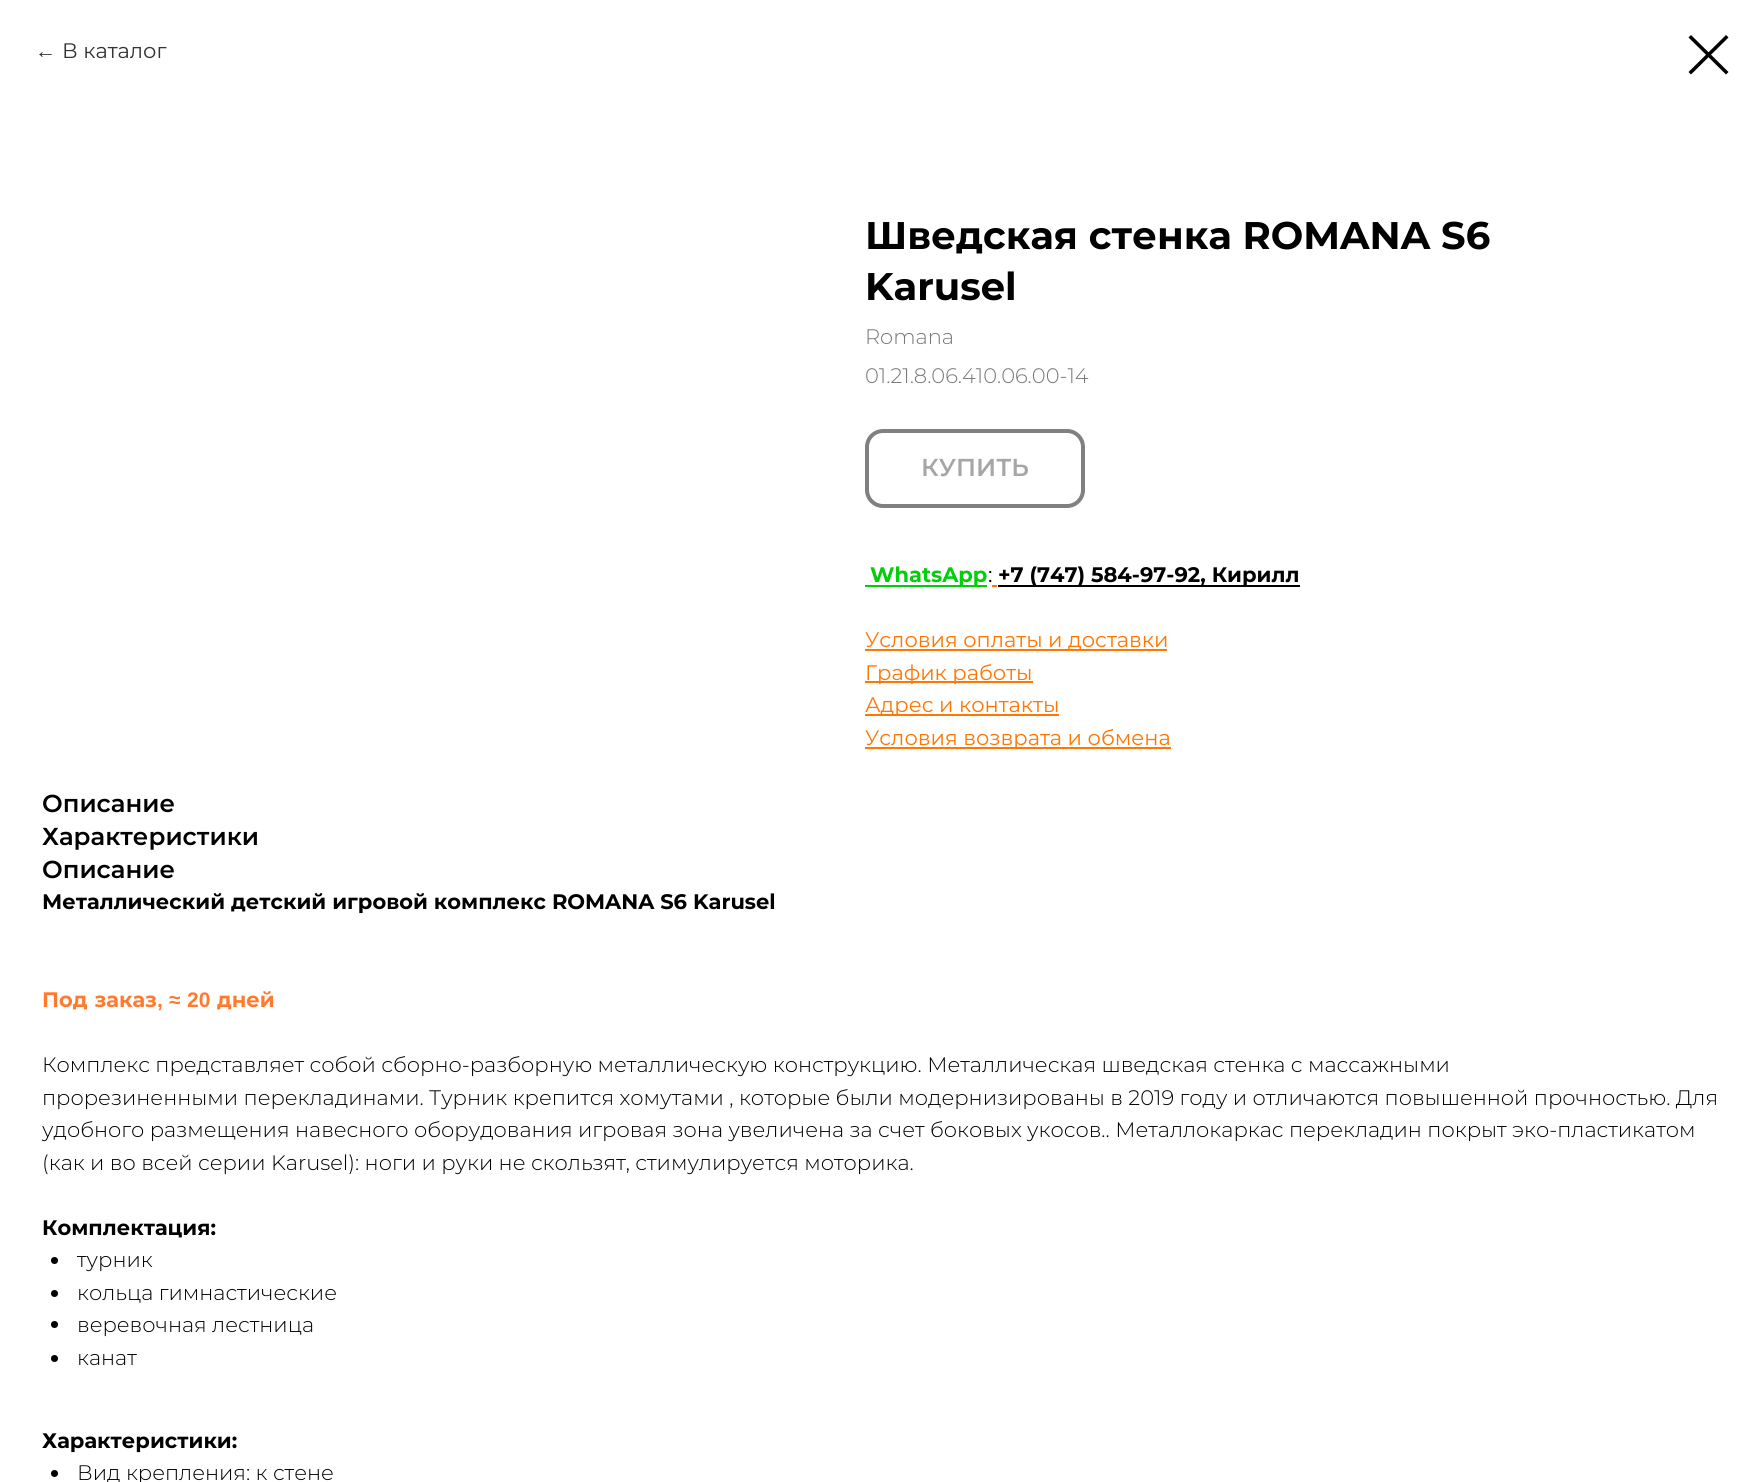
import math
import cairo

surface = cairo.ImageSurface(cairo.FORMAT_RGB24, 1763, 1482)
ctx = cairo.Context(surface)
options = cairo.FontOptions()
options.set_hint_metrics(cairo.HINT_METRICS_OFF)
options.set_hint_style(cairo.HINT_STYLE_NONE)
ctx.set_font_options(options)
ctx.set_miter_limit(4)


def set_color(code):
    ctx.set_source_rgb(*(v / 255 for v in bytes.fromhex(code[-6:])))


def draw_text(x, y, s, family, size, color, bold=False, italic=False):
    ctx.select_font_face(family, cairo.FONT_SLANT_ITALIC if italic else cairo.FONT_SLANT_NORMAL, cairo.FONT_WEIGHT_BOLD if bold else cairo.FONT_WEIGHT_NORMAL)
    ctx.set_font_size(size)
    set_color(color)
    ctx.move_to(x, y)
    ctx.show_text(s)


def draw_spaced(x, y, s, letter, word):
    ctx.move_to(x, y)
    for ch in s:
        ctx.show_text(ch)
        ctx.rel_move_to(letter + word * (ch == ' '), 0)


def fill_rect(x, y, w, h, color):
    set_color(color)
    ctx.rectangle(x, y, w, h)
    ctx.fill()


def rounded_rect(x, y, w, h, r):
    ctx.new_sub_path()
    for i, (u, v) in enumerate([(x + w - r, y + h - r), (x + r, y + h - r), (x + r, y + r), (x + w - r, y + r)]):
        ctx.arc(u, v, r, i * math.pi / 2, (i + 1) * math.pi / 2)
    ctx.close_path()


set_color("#ffffff")
ctx.paint()
draw_text(35, 58, "←", "Liberation Sans", 21, "#333333")
draw_text(62, 58, "В каталог", "Montserrat", 21, "#333333")
set_color("#000000")
ctx.set_fill_rule(cairo.FILL_RULE_EVEN_ODD)
ctx.new_path()
ctx.move_to(1688.5, 37.5)
ctx.line_to(1691, 35)
ctx.line_to(1728.5, 72)
ctx.line_to(1726, 74.5)
ctx.close_path()
ctx.fill()
ctx.new_path()
ctx.move_to(1726, 35)
ctx.line_to(1728.5, 37.5)
ctx.line_to(1691, 74.5)
ctx.line_to(1688.5, 72)
ctx.close_path()
ctx.fill()
draw_text(865, 249, "Шведская стенка ROMANA S6", "Montserrat", 38.5, "#000000", bold=True)
draw_text(865, 300, "Karusel", "Montserrat", 38.5, "#000000", bold=True)
draw_text(865, 344, "Romana", "Montserrat Light", 21, "#777777")
draw_text(865, 383, "01.21.8.06.410.06.00-14", "Montserrat Light", 21, "#777777")
rounded_rect(867, 431, 216, 75, 16)
set_color("#808080")
ctx.set_line_width(4)
ctx.stroke()
draw_text(921, 476, "КУПИТЬ", "Montserrat SemiBold", 24.5, "#a6a6a6")
fill_rect(865, 585, 122, 2, "#00cf09")
draw_text(870, 582, "WhatsApp", "Montserrat", 21, "#00cf09", bold=True)
draw_text(988, 582, ":", "Montserrat", 21, "#000000")
fill_rect(998, 585, 302, 2, "#000000")
draw_text(998, 582, "+7 (747) 584-97-92, Кирилл", "Montserrat", 21, "#000000", bold=True)
fill_rect(992, 585, 5, 2, "#ff7600")
fill_rect(865, 649, 302, 2, "#ff7600")
draw_text(865, 647, "Условия оплаты и доставки", "Montserrat", 21, "#ff7600")
fill_rect(865, 681, 168, 2, "#ff7600")
draw_text(865, 680, "График работы", "Montserrat", 21, "#ff7600")
fill_rect(865, 714, 194, 2, "#ff7600")
draw_text(865, 712, "Адрес и контакты", "Montserrat", 21, "#ff7600")
fill_rect(865, 747, 306, 2, "#ff7600")
draw_text(865, 745, "Условия возврата и обмена", "Montserrat", 21, "#ff7600")
draw_text(42, 812, "Описание", "Montserrat SemiBold", 24.5, "#000000")
draw_text(42, 845, "Характеристики", "Montserrat SemiBold", 24.5, "#000000")
draw_text(42, 878, "Описание", "Montserrat SemiBold", 24.5, "#000000")
draw_text(42, 909, "Металлический детский игровой комплекс ROMANA S6 Karusel", "Montserrat", 21, "#000000", bold=True)
set_color("#ff7a2f")
draw_spaced(42, 1007, "Под заказ", 0, 1)
draw_text(169, 1007, "≈", "Liberation Sans", 21, "#ff7a2f", bold=True)
draw_text(187, 1007, "20", "Liberation Sans", 21, "#ff7a2f", bold=True)
draw_text(217, 1007, "дней", "Montserrat", 21, "#ff7a2f", bold=True)
draw_text(157, 1007, ",", "Liberation Sans", 21, "#ff7a2f", bold=True)
draw_text(42, 1072, "Комплекс представляет собой сборно-разборную металлическую конструкцию. Металлическая шведская стенка с массажными", "Montserrat Light", 21, "#000000")
draw_text(42, 1105, "прорезиненными перекладинами. Турник крепится хомутами , которые были модернизированы в 2019 году и отличаются повышенной прочностью. Для", "Montserrat Light", 21, "#000000")
draw_text(42, 1137, "удобного размещения навесного оборудования игровая зона увеличена за счет боковых укосов.. Металлокаркас перекладин покрыт эко-пластикатом", "Montserrat Light", 21, "#000000")
draw_text(42, 1170, "(как и во всей серии Karusel): ноги и руки не скользят, стимулируется моторика.", "Montserrat Light", 21, "#000000")
draw_text(42, 1235, "Комплектация:", "Montserrat", 21, "#000000", bold=True)
ctx.new_path()
ctx.arc(54.5, 1260.5, 3.5, 0, 2 * math.pi)
ctx.fill()
draw_text(77, 1267, "турник", "Montserrat Light", 21, "#000000")
ctx.new_path()
ctx.arc(54.5, 1293.5, 3.5, 0, 2 * math.pi)
ctx.fill()
draw_text(77, 1300, "кольца гимнастические", "Montserrat Light", 21, "#000000")
ctx.new_path()
ctx.arc(54.5, 1324.5, 3.5, 0, 2 * math.pi)
ctx.fill()
draw_text(77, 1332, "веревочная лестница", "Montserrat Light", 21, "#000000")
ctx.new_path()
ctx.arc(54.5, 1358.5, 3.5, 0, 2 * math.pi)
ctx.fill()
draw_text(77, 1365, "канат", "Montserrat Light", 21, "#000000")
draw_text(42, 1448, "Характеристики:", "Montserrat", 21, "#000000", bold=True)
ctx.new_path()
ctx.arc(54.5, 1473.5, 3.5, 0, 2 * math.pi)
ctx.fill()
draw_text(77, 1480, "Вид крепления: к стене", "Montserrat Light", 21, "#000000")
surface.write_to_png("output.png")
